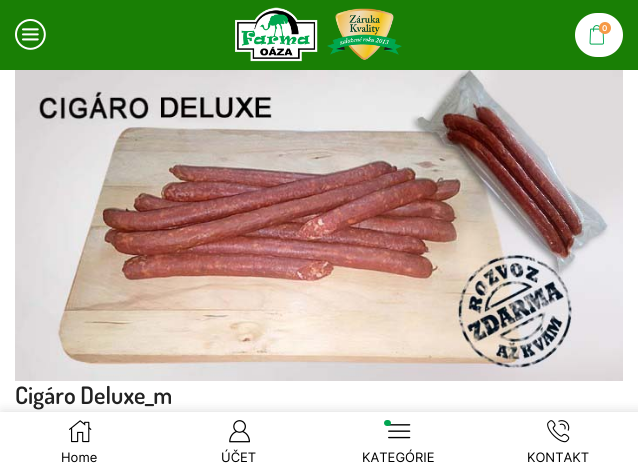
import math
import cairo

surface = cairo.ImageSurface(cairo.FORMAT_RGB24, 638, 476)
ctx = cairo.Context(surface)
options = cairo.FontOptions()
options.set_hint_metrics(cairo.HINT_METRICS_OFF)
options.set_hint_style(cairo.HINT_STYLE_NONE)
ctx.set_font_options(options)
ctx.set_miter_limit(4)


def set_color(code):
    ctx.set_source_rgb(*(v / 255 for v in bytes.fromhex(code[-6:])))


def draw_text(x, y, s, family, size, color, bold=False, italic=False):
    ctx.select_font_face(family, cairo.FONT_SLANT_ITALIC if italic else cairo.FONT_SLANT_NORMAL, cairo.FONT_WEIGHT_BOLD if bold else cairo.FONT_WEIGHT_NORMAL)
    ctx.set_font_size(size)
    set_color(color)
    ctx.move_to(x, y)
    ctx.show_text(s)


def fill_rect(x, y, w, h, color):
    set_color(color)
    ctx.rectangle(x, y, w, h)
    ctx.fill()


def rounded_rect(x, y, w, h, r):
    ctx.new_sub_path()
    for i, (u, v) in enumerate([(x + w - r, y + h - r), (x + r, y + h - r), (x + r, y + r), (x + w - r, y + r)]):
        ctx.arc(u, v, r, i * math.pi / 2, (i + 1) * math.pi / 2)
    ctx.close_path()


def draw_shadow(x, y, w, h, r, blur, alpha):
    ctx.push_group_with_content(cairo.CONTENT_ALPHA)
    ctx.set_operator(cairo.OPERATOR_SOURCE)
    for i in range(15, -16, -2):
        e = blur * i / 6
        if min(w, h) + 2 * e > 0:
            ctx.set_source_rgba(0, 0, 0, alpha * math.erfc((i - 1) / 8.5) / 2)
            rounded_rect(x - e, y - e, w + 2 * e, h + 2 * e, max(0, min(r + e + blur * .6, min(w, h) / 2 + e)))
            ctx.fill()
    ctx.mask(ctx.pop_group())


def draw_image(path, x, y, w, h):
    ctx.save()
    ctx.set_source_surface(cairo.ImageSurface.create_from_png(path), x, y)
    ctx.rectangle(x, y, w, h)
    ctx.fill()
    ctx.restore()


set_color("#ffffff")
ctx.paint()
fill_rect(0, 0, 638, 70, "#197f05")
draw_image("assets/img1.png", 15, 19, 31, 31)
draw_image("assets/img2.png", 235, 7, 167, 55)
set_color("#ffffff")
rounded_rect(575, 13, 48, 44, 22)
ctx.fill()
draw_image("assets/img3.png", 589, 25, 15, 20)
set_color("#f69946")
ctx.arc(605, 28, 6, 0, 2 * math.pi)
ctx.fill()
draw_text(602, 31, "0", "Inter SemiBold", 8, "#ffffff")
draw_image("assets/img4.png", 15, 70, 608, 311)
draw_text(15, 404, "Cigáro Deluxe_m", "Dosis SemiBold", 24, "#222222")
set_color("#000000")
draw_shadow(2, 412, 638, 64, 0, 6, 0.15)
fill_rect(0, 412, 638, 64, "#ffffff")
draw_image("assets/img5.png", 69, 420, 23, 23)
draw_text(61, 462, "Home", "Inter", 13, "#000000")
draw_image("assets/img6.png", 229, 420, 21, 23)
draw_text(221, 462, "ÚČET", "Inter", 13, "#000000")
draw_image("assets/img7.png", 388, 424, 23, 15)
set_color("#00a651")
rounded_rect(384, 420, 7, 6, 3)
ctx.fill()
draw_text(362, 462, "KATEGÓRIE", "Inter", 13, "#000000")
draw_image("assets/img8.png", 547, 420, 23, 23)
draw_text(527, 462, "KONTAKT", "Inter", 13, "#000000")
surface.write_to_png("output.png")
